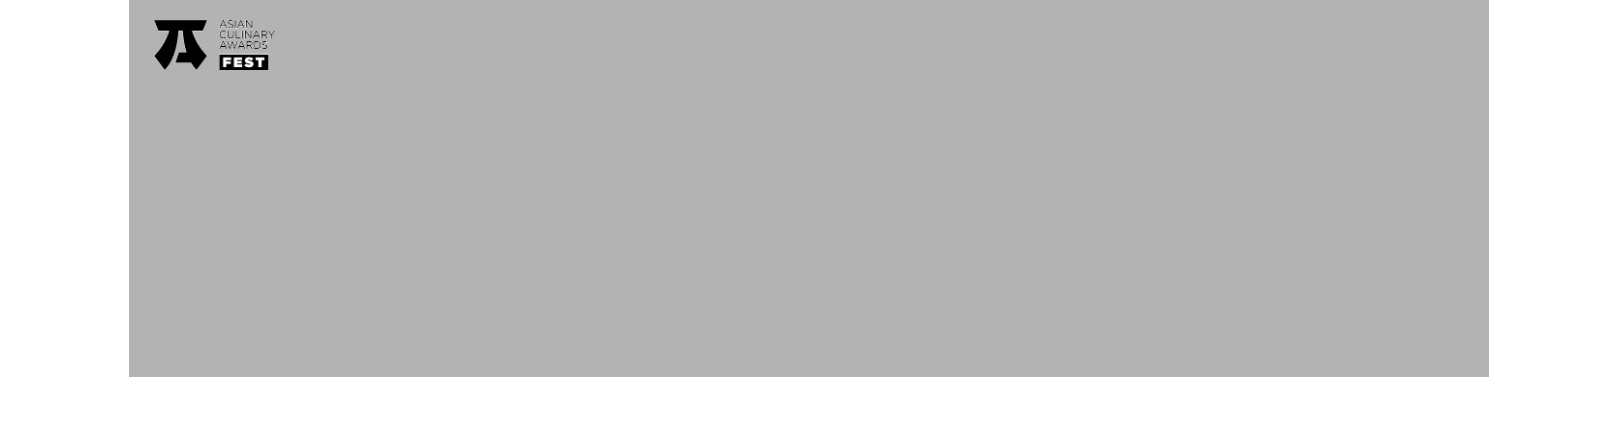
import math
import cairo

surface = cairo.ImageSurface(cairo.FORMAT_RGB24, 1618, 435)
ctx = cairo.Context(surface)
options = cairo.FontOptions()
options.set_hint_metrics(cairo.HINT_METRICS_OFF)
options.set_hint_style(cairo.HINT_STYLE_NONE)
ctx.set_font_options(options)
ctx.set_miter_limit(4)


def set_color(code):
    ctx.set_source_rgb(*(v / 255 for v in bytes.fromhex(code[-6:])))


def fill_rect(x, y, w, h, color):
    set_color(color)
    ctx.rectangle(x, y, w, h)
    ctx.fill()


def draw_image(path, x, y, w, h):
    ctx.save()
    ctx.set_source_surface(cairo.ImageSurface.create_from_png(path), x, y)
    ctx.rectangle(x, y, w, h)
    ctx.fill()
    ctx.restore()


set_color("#ffffff")
ctx.paint()
fill_rect(129, 0, 1360, 377, "#b3b3b3")
draw_image("assets/img1.png", 154, 20, 121, 50)
surface.write_to_png("output.png")
